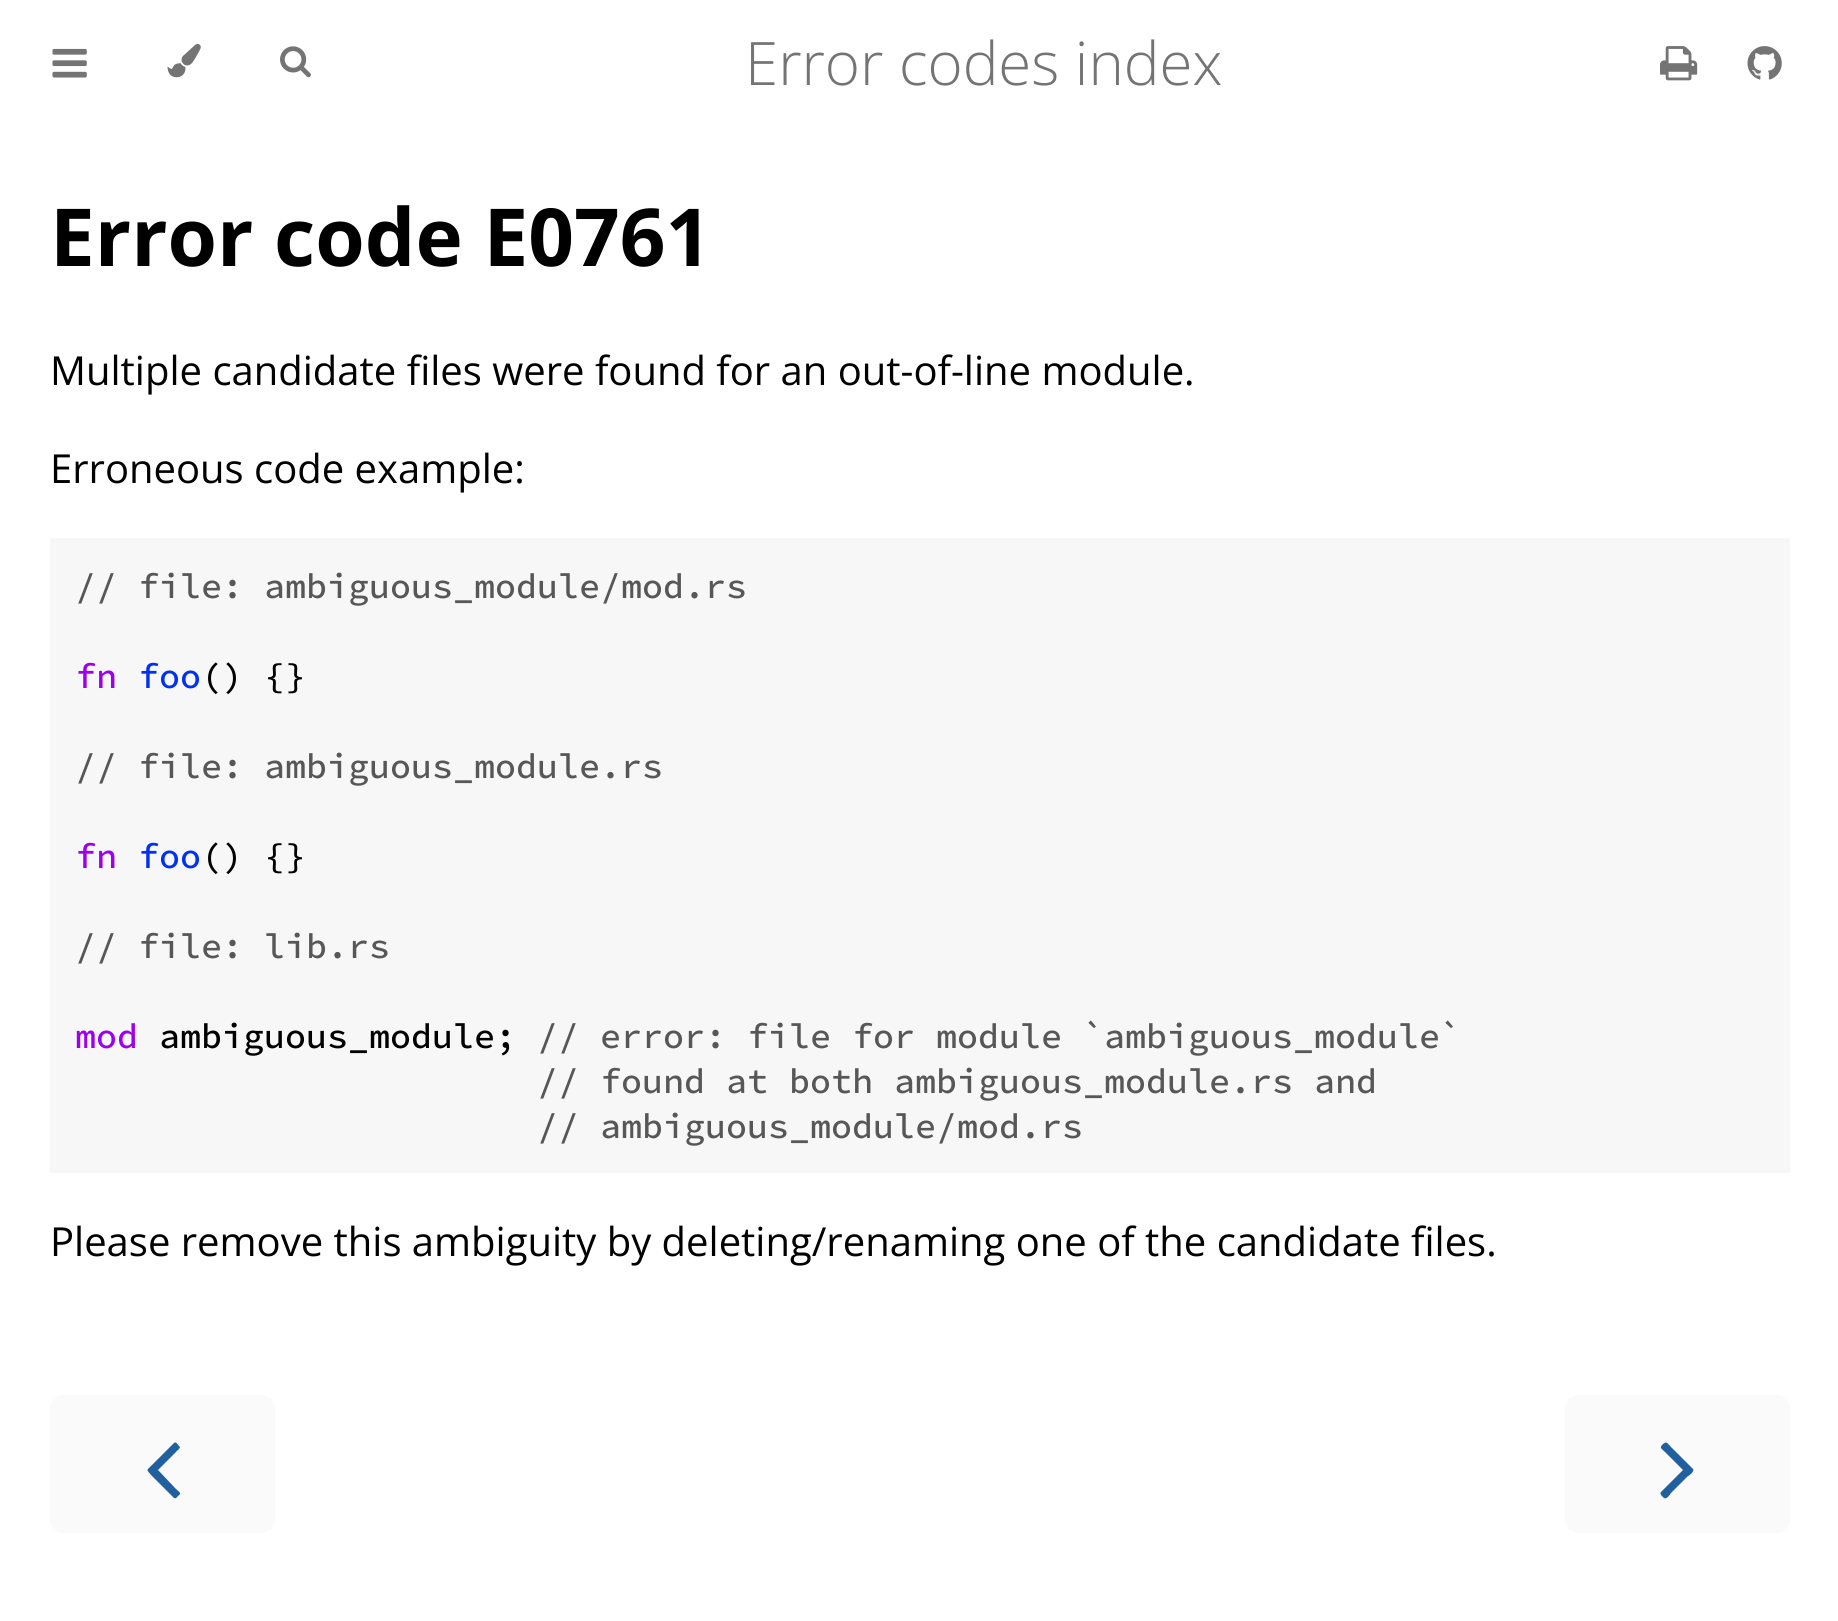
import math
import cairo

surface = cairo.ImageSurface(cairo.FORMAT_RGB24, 1838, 1621)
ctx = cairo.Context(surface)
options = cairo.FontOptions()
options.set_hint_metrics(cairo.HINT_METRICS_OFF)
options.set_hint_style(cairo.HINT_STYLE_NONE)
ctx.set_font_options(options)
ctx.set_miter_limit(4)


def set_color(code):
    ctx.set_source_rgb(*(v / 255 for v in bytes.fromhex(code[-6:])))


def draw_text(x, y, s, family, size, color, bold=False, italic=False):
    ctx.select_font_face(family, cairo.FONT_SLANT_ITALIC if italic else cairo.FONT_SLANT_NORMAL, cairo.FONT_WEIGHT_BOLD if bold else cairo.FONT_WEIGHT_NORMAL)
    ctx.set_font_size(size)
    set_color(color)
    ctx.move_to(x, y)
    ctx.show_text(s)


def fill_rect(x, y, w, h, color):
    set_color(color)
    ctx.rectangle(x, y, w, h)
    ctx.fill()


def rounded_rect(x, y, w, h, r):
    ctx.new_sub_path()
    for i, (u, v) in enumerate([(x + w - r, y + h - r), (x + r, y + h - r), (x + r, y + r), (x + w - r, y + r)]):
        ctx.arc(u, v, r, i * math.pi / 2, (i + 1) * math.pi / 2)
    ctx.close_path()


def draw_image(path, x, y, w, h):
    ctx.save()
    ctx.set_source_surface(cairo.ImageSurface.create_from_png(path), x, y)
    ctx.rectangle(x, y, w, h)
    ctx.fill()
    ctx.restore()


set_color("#ffffff")
ctx.paint()
draw_image("assets/img1.png", 52, 48, 35, 30)
draw_image("assets/img2.png", 167, 44, 34, 34)
draw_image("assets/img3.png", 280, 46, 31, 32)
draw_text(745, 85, "Error codes index", "Open Sans Light", 60, "#747474")
draw_image("assets/img4.png", 1660, 46, 38, 35)
draw_image("assets/img5.png", 1747, 46, 35, 34)
draw_text(50, 266, "Error code E0761", "Open Sans", 80, "#000000", bold=True)
draw_text(50, 385, "Multiple candidate files were found for an out-of-line module.", "Open Sans", 40, "#000000")
draw_text(50, 483, "Erroneous code example:", "Open Sans", 40, "#000000")
fill_rect(50, 538, 1740, 635, "#f6f7f6")
draw_text(75, 598, "// file: ambiguous_module/mod.rs", "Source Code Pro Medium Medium", 35, "#575757")
draw_text(75, 688, "fn", "Source Code Pro Medium Medium", 35, "#9d00ec")
draw_text(138, 688, "foo", "Source Code Pro Medium Medium", 35, "#0030f2")
draw_text(201, 688, "() {}", "Source Code Pro Medium Medium", 35, "#000000")
draw_text(75, 778, "// file: ambiguous_module.rs", "Source Code Pro Medium Medium", 35, "#575757")
draw_text(75, 868, "fn", "Source Code Pro Medium Medium", 35, "#9d00ec")
draw_text(138, 868, "foo", "Source Code Pro Medium Medium", 35, "#0030f2")
draw_text(201, 868, "() {}", "Source Code Pro Medium Medium", 35, "#000000")
draw_text(75, 958, "// file: lib.rs", "Source Code Pro Medium Medium", 35, "#575757")
draw_text(75, 1048, "mod", "Source Code Pro Medium Medium", 35, "#9d00ec")
draw_text(159, 1048, "ambiguous_module;", "Source Code Pro Medium Medium", 35, "#000000")
draw_text(537, 1048, "// error: file for module `ambiguous_module`", "Source Code Pro Medium Medium", 35, "#575757")
draw_text(537, 1093, "// found at both ambiguous_module.rs and", "Source Code Pro Medium Medium", 35, "#575757")
draw_text(537, 1138, "// ambiguous_module/mod.rs", "Source Code Pro Medium Medium", 35, "#575757")
draw_text(50, 1256, "Please remove this ambiguity by deleting/renaming one of the candidate files.", "Open Sans", 40, "#000000")
set_color("#fafafa")
rounded_rect(50, 1395, 225, 138, 13)
ctx.fill()
set_color("#20609f")
ctx.new_path()
ctx.move_to(179, 1446)
ctx.curve_to(182, 1448, 176, 1451, 176, 1452)
ctx.line_to(158, 1470)
ctx.line_to(176, 1489)
ctx.curve_to(180, 1493, 182, 1493, 178, 1496)
ctx.curve_to(177, 1497, 176, 1499, 174, 1498)
ctx.line_to(152, 1476)
ctx.curve_to(146, 1469, 146, 1471, 152, 1465)
ctx.line_to(174, 1443)
ctx.curve_to(176, 1441, 178, 1445, 179, 1446)
ctx.close_path()
ctx.fill()
set_color("#fafafa")
rounded_rect(1565, 1395, 225, 138, 13)
ctx.fill()
set_color("#20609f")
ctx.new_path()
ctx.move_to(1693, 1469)
ctx.curve_to(1695, 1471, 1689, 1476, 1688, 1476)
ctx.line_to(1671, 1493)
ctx.curve_to(1671, 1493, 1667, 1500, 1664, 1498)
ctx.curve_to(1663, 1497, 1659, 1494, 1661, 1492)
ctx.line_to(1683, 1470)
ctx.line_to(1665, 1452)
ctx.curve_to(1661, 1448, 1659, 1448, 1663, 1444)
ctx.curve_to(1667, 1441, 1667, 1443, 1671, 1447)
ctx.close_path()
ctx.fill()
surface.write_to_png("output.png")
